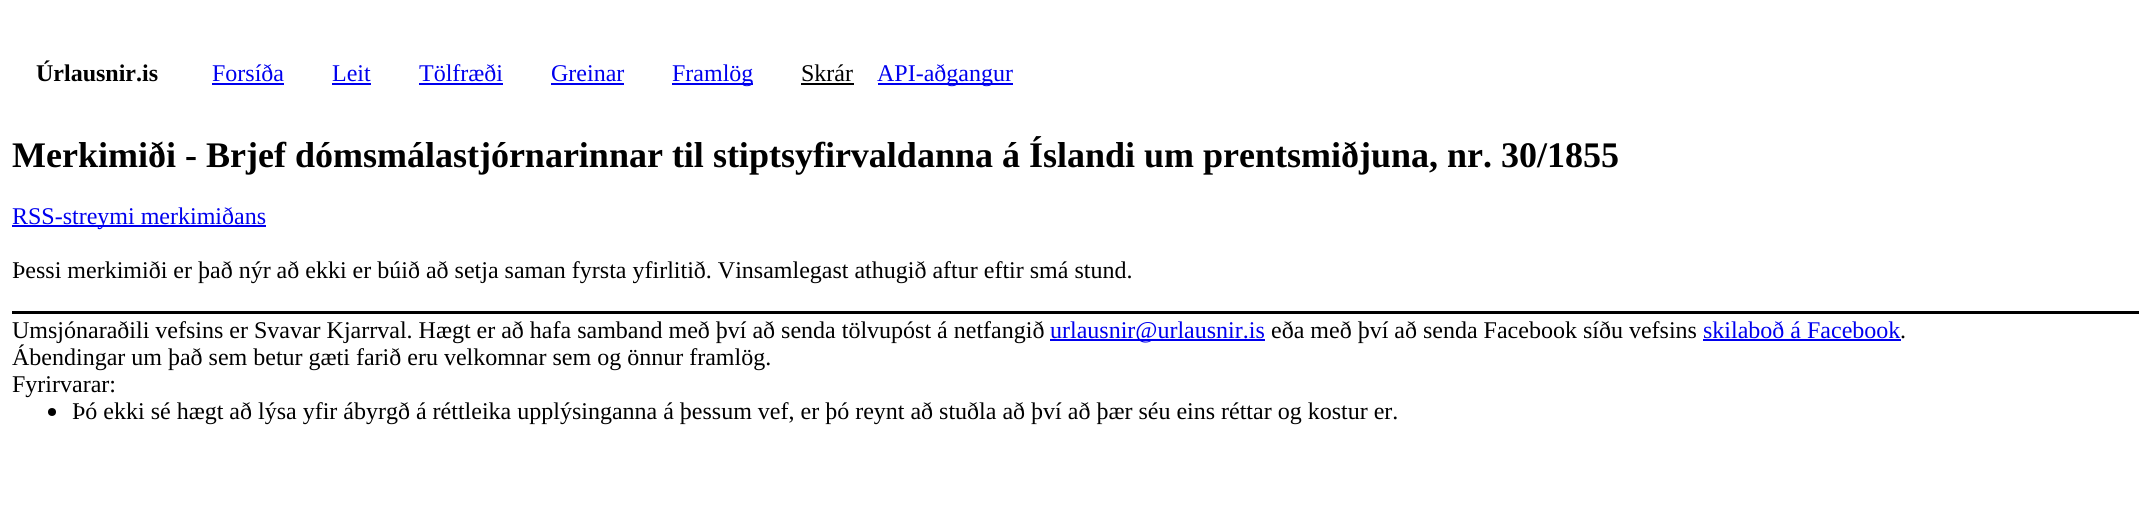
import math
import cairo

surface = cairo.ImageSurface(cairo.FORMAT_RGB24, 2151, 526)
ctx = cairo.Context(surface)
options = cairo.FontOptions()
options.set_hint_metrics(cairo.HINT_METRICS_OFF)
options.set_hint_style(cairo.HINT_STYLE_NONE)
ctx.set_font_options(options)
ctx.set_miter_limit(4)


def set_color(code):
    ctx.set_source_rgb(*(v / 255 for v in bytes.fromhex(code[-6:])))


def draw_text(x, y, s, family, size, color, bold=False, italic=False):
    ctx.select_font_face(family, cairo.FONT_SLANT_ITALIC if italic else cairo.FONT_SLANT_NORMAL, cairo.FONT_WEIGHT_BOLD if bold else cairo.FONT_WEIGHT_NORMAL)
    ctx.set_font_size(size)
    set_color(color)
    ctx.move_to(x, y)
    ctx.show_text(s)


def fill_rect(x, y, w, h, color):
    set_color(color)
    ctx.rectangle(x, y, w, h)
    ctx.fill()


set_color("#ffffff")
ctx.paint()
draw_text(36, 81, "Úrlausnir.is", "Liberation Serif", 24, "#000000", bold=True)
draw_text(212, 81, "Forsíða", "Liberation Serif", 24, "#0000ee")
fill_rect(212, 83, 72, 2, "#0000ee")
draw_text(332, 81, "Leit", "Liberation Serif", 24, "#0000ee")
fill_rect(332, 83, 39, 2, "#0000ee")
draw_text(419, 81, "Tölfræði", "Liberation Serif", 24, "#0000ee")
fill_rect(419, 83, 84, 2, "#0000ee")
draw_text(551, 81, "Greinar", "Liberation Serif", 24, "#0000ee")
fill_rect(551, 83, 73, 2, "#0000ee")
fill_rect(672, 83, 81, 2, "#0000ee")
draw_text(672, 81, "Framlög", "Liberation Serif", 24, "#0000ee")
draw_text(801, 81, "Skrár", "Liberation Serif", 24, "#000000")
fill_rect(801, 83, 53, 2, "#000000")
fill_rect(878, 83, 135, 2, "#0000ee")
draw_text(877, 81, "API-aðgangur", "Liberation Serif", 24, "#0000ee")
draw_text(12, 167, "Merkimiði - Brjef dómsmálastjórnarinnar til stiptsyfirvaldanna á Íslandi um prentsmiðjuna, nr. 30/1855", "Liberation Serif", 36, "#000000", bold=True)
fill_rect(12, 225, 254, 2, "#0000ee")
draw_text(12, 224, "RSS-streymi merkimiðans", "Liberation Serif", 24, "#0000ee")
draw_text(12, 278, "Þessi merkimiði er það nýr að ekki er búið að setja saman fyrsta yfirlitið. Vinsamlegast athugið aftur eftir smá stund.", "Liberation Serif", 24, "#000000")
fill_rect(12, 311, 2127, 3, "#000000")
draw_text(12, 338, "Umsjónaraðili vefsins er Svavar Kjarrval. Hægt er að hafa samband með því að senda tölvupóst á netfangið", "Liberation Serif", 24, "#000000")
fill_rect(1050, 339, 215, 2, "#0000ee")
draw_text(1050, 338, "urlausnir@urlausnir.is", "Liberation Serif", 24, "#0000ee")
draw_text(1271, 338, "eða með því að senda Facebook síðu vefsins", "Liberation Serif", 24, "#000000")
draw_text(1703, 338, "skilaboð á Facebook", "Liberation Serif", 24, "#0000ee")
fill_rect(1703, 339, 198, 2, "#0000ee")
draw_text(1900, 338, ".", "Liberation Serif", 24, "#000000")
draw_text(12, 365, "Ábendingar um það sem betur gæti farið eru velkomnar sem og önnur framlög.", "Liberation Serif", 24, "#000000")
draw_text(12, 392, "Fyrirvarar:", "Liberation Serif", 24, "#000000")
ctx.new_path()
ctx.arc(52, 412, 4, 0, 2 * math.pi)
ctx.fill()
draw_text(72, 419, "Þó ekki sé hægt að lýsa yfir ábyrgð á réttleika upplýsinganna á þessum vef, er þó reynt að stuðla að því að þær séu eins réttar og kostur er.", "Liberation Serif", 24, "#000000")
surface.write_to_png("output.png")
